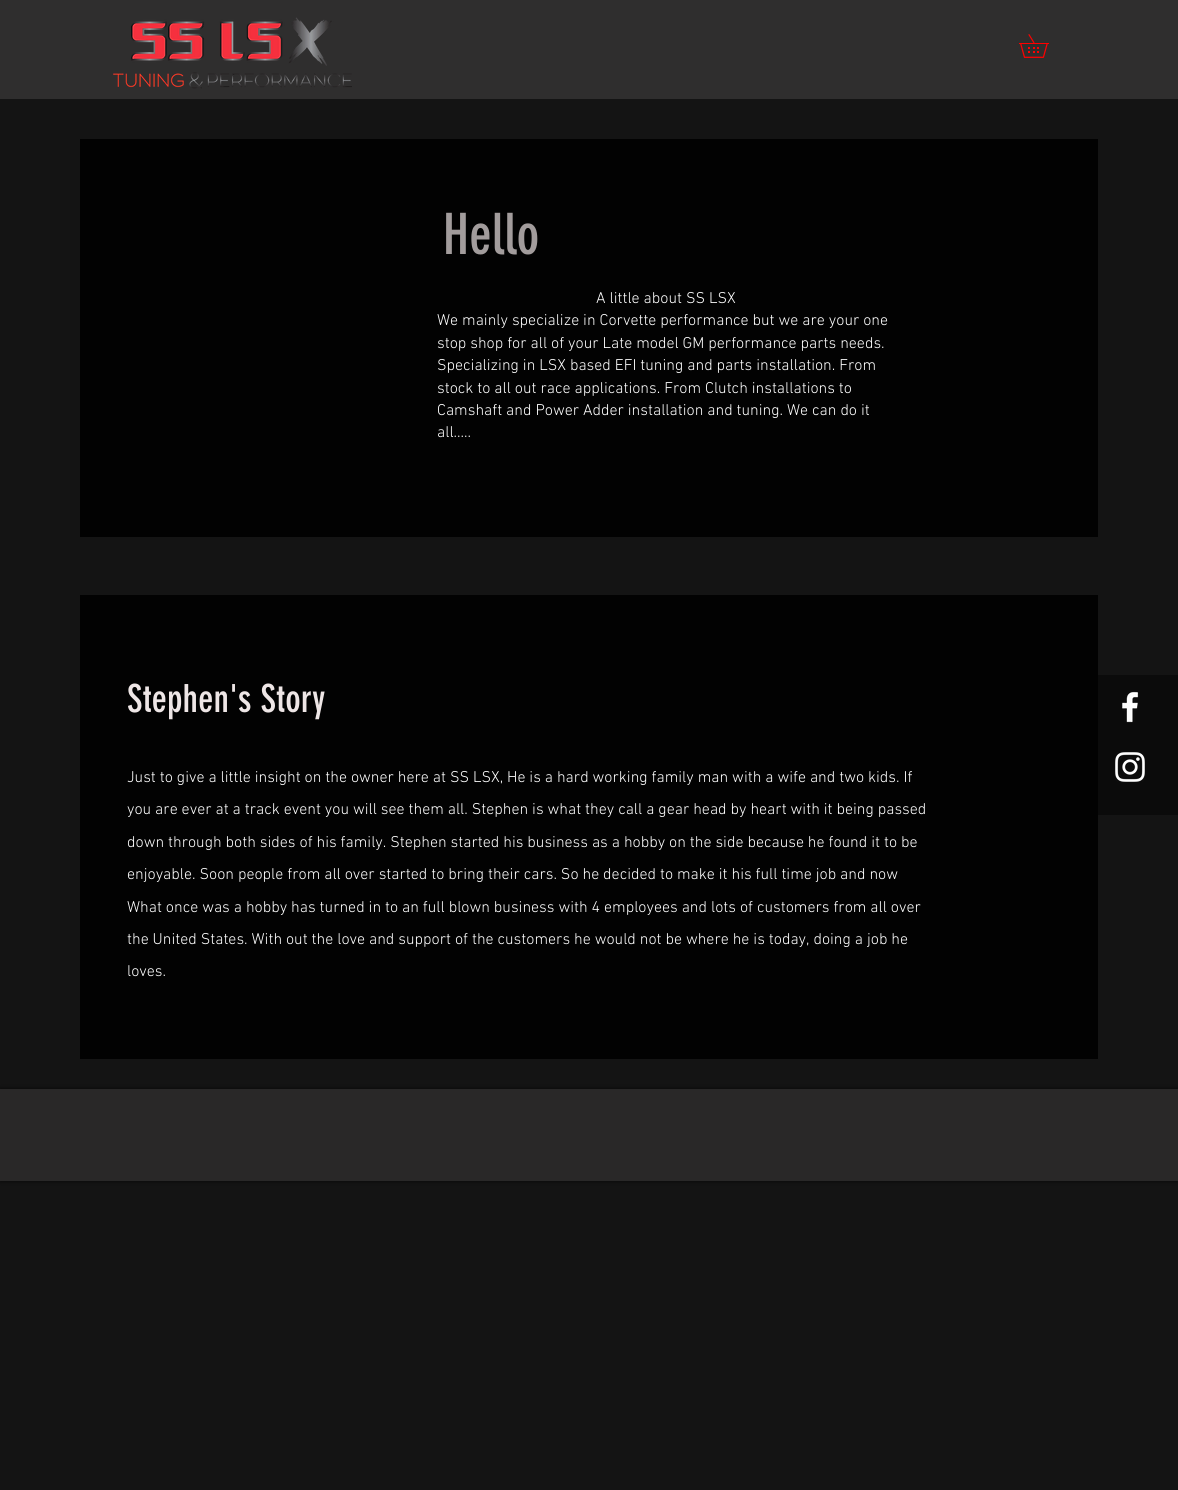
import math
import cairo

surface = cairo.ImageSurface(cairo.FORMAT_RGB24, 1178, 1490)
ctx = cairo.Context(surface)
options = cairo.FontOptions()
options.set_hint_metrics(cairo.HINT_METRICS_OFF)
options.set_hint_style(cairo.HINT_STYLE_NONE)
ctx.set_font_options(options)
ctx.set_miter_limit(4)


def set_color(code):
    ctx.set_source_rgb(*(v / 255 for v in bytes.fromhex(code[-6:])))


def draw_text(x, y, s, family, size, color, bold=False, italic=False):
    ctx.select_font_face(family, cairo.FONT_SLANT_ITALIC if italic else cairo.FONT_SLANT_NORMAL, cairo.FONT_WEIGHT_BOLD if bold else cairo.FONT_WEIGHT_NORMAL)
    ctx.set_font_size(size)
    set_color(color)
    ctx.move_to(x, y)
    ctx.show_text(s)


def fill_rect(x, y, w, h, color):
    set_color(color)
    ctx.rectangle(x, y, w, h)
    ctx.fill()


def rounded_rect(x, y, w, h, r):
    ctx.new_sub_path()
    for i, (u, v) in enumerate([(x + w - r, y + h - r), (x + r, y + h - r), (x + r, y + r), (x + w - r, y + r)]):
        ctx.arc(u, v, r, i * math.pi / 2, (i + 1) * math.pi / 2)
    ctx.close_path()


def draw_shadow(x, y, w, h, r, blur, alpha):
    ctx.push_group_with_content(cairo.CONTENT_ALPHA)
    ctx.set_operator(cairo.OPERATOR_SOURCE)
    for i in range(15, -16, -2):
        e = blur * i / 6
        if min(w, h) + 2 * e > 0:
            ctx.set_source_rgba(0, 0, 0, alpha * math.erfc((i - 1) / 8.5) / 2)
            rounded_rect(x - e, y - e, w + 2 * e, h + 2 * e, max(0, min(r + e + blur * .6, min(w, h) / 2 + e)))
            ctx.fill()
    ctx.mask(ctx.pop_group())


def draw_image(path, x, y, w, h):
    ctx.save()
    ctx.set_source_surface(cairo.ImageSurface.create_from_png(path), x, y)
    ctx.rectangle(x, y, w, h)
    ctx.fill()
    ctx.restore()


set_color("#141414")
ctx.paint()
fill_rect(0, 0, 1178, 99, "#2f2e2e")
draw_image("assets/img1.png", 113, 17, 239, 72)
draw_image("assets/img2.png", 1019, 34, 30, 24)
fill_rect(80, 139, 1018, 398, "#020202")
draw_text(443, 254, "Hello", "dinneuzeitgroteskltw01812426", 56, "#a29c9c")
draw_text(596, 303, "A little about SS LSX", "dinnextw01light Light", 16, "#ffffff")
draw_text(437, 325, "We mainly specialize in Corvette performance but we are your one", "dinnextw01light Light", 16, "#ffffff")
draw_text(437, 348, "stop shop for all of your Late model GM performance parts needs.", "dinnextw01light Light", 16, "#ffffff")
draw_text(437, 370, "Specializing in LSX based EFI tuning and parts installation. From", "dinnextw01light Light", 16, "#ffffff")
draw_text(437, 393, "stock to all out race applications. From Clutch installations to", "dinnextw01light Light", 16, "#ffffff")
draw_text(437, 415, "Camshaft and Power Adder installation and tuning. We can do it", "dinnextw01light Light", 16, "#ffffff")
draw_text(437, 437, "all.....", "dinnextw01light Light", 16, "#ffffff")
fill_rect(80, 595, 1018, 464, "#020202")
draw_text(127, 712, "Stephen's Story", "dinneuzeitgroteskltw01812426", 38, "#eee6e6")
draw_text(127, 782, "Just to give a little insight on the owner here at SS LSX, He is a hard working family man with a wife and two kids. If", "dinnextw01light Light", 16, "#ffffff")
draw_text(127, 814, "you are ever at a track event you will see them all. Stephen is what they call a gear head by heart with it being passed", "dinnextw01light Light", 16, "#ffffff")
draw_text(127, 847, "down through both sides of his family. Stephen started his business as a hobby on the side because he found it to be", "dinnextw01light Light", 16, "#ffffff")
draw_text(127, 879, "enjoyable. Soon people from all over started to bring their cars. So he decided to make it his full time job and now", "dinnextw01light Light", 16, "#ffffff")
draw_text(127, 912, "What once was a hobby has turned in to an full blown business with 4 employees and lots of customers from all over", "dinnextw01light Light", 16, "#ffffff")
draw_text(127, 944, "the United States. With out the love and support of the customers he would not be where he is today, doing a job he", "dinnextw01light Light", 16, "#ffffff")
draw_text(127, 976, "loves.", "dinnextw01light Light", 16, "#ffffff")
fill_rect(1098, 675, 80, 140, "#0b0b0b")
draw_image("assets/img3.png", 1122, 691, 17, 32)
draw_image("assets/img4.png", 1115, 752, 30, 30)
set_color("#000000")
draw_shadow(0, 1089, 1178, 92, 0, 2.5, 0.7)
fill_rect(0, 1089, 1178, 92, "#292828")
surface.write_to_png("output.png")
